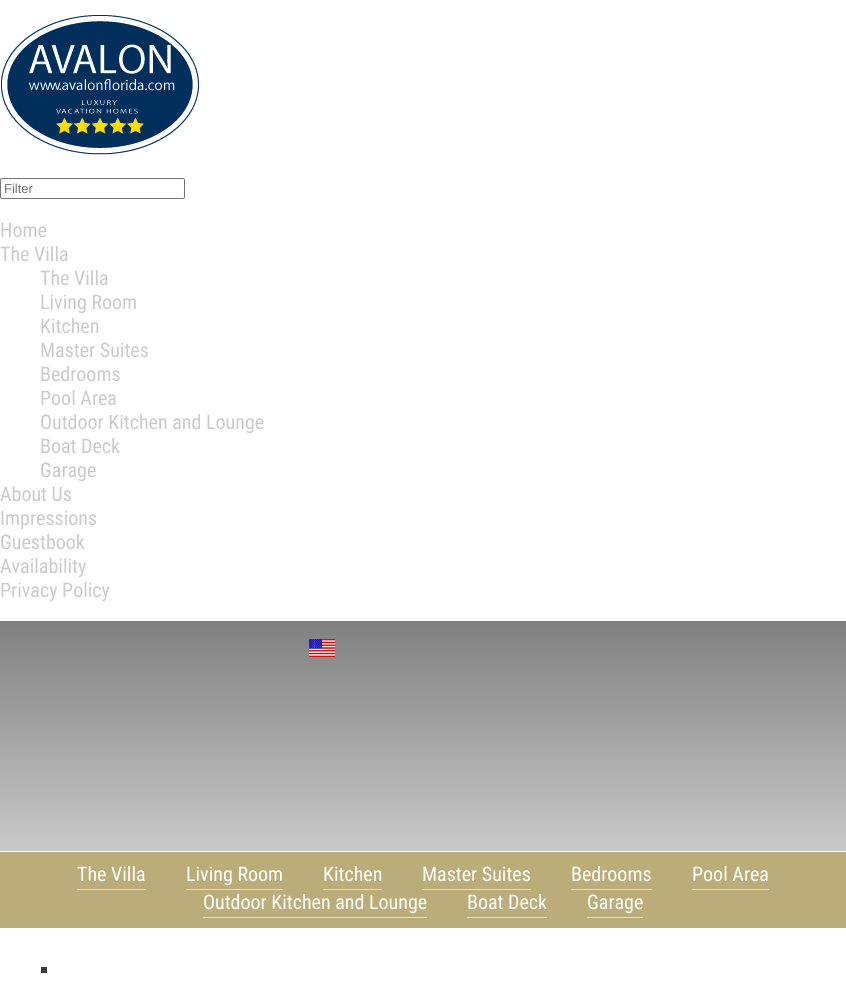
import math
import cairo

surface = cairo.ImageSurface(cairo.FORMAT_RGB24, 846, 999)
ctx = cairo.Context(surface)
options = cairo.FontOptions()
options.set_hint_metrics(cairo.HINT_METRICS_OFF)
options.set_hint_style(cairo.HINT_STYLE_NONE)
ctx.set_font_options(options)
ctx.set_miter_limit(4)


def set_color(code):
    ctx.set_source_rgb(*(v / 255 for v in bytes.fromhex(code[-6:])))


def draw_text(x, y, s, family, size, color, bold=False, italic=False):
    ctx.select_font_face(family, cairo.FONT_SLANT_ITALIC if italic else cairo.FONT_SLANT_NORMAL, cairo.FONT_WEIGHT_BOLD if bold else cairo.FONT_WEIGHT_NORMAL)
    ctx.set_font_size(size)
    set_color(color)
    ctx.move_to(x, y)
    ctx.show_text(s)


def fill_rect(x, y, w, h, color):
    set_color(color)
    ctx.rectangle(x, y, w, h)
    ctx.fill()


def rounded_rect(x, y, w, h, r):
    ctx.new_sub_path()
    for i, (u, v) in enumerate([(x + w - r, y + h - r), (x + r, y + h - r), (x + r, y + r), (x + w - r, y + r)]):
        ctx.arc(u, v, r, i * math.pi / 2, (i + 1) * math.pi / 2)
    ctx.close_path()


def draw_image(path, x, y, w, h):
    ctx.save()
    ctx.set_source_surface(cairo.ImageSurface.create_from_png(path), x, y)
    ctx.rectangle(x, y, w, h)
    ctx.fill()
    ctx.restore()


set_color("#ffffff")
ctx.paint()
draw_image("assets/img1.png", 1, 15, 198, 140)
rounded_rect(0.5, 178.5, 184, 20, 1.5)
set_color("#767676")
ctx.set_line_width(1)
ctx.stroke()
draw_text(4, 193, "Filter", "Liberation Sans", 13, "#757575")
draw_text(0, 237, "Home", "Roboto Condensed", 20, "#cbcbcb")
draw_text(0, 261, "The Villa", "Roboto Condensed", 20, "#cbcbcb")
draw_text(40, 285, "The Villa", "Roboto Condensed", 20, "#cbcbcb")
draw_text(40, 309, "Living Room", "Roboto Condensed", 20, "#cbcbcb")
draw_text(40, 333, "Kitchen", "Roboto Condensed", 20, "#cbcbcb")
draw_text(40, 357, "Master Suites", "Roboto Condensed", 20, "#cbcbcb")
draw_text(40, 381, "Bedrooms", "Roboto Condensed", 20, "#cbcbcb")
draw_text(40, 405, "Pool Area", "Roboto Condensed", 20, "#cbcbcb")
draw_text(40, 429, "Outdoor Kitchen and Lounge", "Roboto Condensed", 20, "#cbcbcb")
draw_text(40, 453, "Boat Deck", "Roboto Condensed", 20, "#cbcbcb")
draw_text(40, 477, "Garage", "Roboto Condensed", 20, "#cbcbcb")
draw_text(0, 501, "About Us", "Roboto Condensed", 20, "#cbcbcb")
draw_text(0, 525, "Impressions", "Roboto Condensed", 20, "#cbcbcb")
draw_text(0, 549, "Guestbook", "Roboto Condensed", 20, "#cbcbcb")
draw_text(0, 573, "Availability", "Roboto Condensed", 20, "#cbcbcb")
draw_text(0, 597, "Privacy Policy", "Roboto Condensed", 20, "#cbcbcb")
gradient = cairo.LinearGradient(423, 851, 423, 621)
gradient.add_color_stop_rgba(0, 0.788, 0.788, 0.788, 1)
gradient.add_color_stop_rgba(1, 0.502, 0.502, 0.502, 1)
ctx.set_source(gradient)
ctx.rectangle(0, 621, 846, 230)
ctx.fill()
draw_image("assets/img2.png", 309, 639, 26, 18)
fill_rect(0, 852, 846, 76, "#bbad79")
fill_rect(77, 889, 69, 1, "#eddfae")
draw_text(77, 881, "The Villa", "Roboto Condensed", 20, "#ffffff")
fill_rect(186, 889, 97, 1, "#eddfae")
draw_text(186, 881, "Living Room", "Roboto Condensed", 20, "#ffffff")
fill_rect(323, 889, 59, 1, "#eddfae")
draw_text(323, 881, "Kitchen", "Roboto Condensed", 20, "#ffffff")
fill_rect(422, 889, 109, 1, "#eddfae")
draw_text(422, 881, "Master Suites", "Roboto Condensed", 20, "#ffffff")
fill_rect(571, 889, 81, 1, "#eddfae")
draw_text(571, 881, "Bedrooms", "Roboto Condensed", 20, "#ffffff")
fill_rect(692, 889, 77, 1, "#eddfae")
draw_text(692, 881, "Pool Area", "Roboto Condensed", 20, "#ffffff")
fill_rect(203, 917, 224, 1, "#eddfae")
draw_text(203, 909, "Outdoor Kitchen and Lounge", "Roboto Condensed", 20, "#ffffff")
fill_rect(467, 917, 80, 1, "#eddfae")
draw_text(467, 909, "Boat Deck", "Roboto Condensed", 20, "#ffffff")
fill_rect(587, 917, 56, 1, "#eddfae")
draw_text(587, 909, "Garage", "Roboto Condensed", 20, "#ffffff")
fill_rect(41, 967, 6, 6, "#3c3c3c")
surface.write_to_png("output.png")
